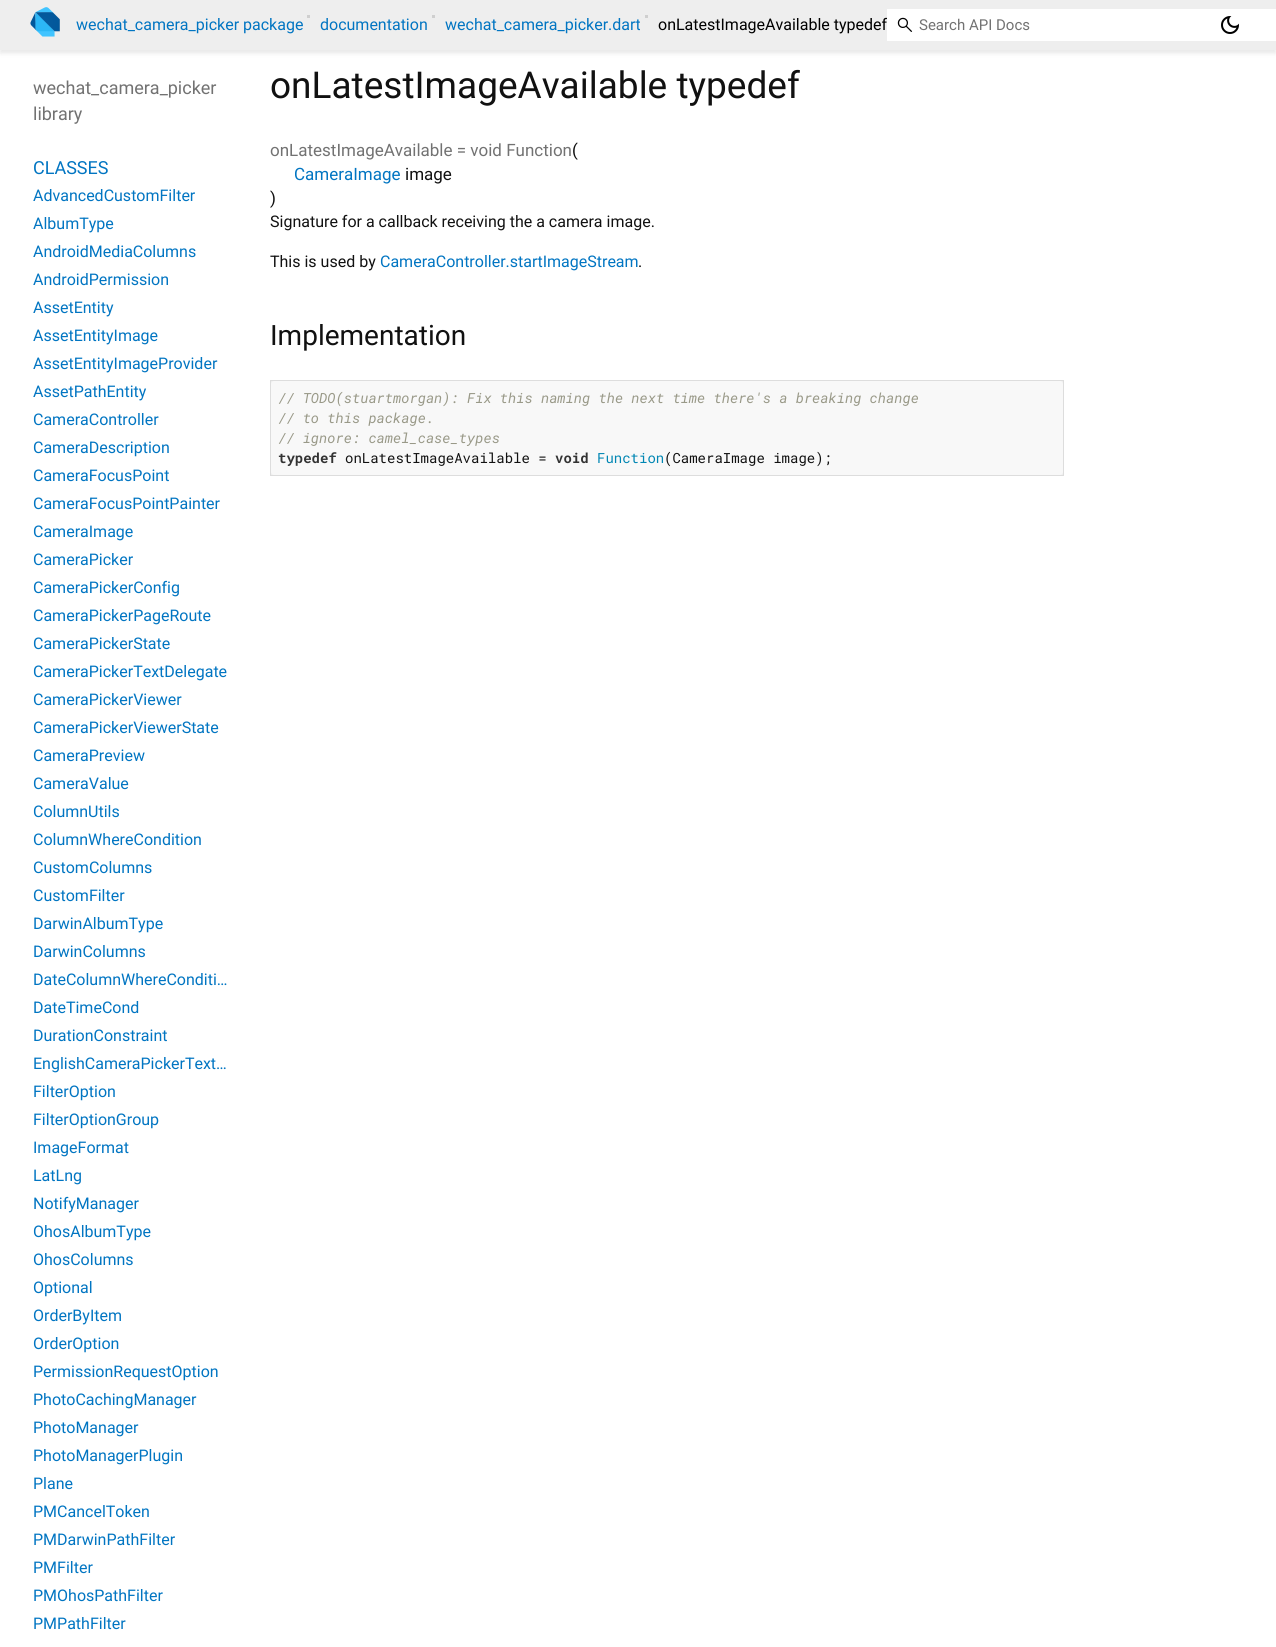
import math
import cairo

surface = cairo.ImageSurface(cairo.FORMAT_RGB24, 1276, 1647)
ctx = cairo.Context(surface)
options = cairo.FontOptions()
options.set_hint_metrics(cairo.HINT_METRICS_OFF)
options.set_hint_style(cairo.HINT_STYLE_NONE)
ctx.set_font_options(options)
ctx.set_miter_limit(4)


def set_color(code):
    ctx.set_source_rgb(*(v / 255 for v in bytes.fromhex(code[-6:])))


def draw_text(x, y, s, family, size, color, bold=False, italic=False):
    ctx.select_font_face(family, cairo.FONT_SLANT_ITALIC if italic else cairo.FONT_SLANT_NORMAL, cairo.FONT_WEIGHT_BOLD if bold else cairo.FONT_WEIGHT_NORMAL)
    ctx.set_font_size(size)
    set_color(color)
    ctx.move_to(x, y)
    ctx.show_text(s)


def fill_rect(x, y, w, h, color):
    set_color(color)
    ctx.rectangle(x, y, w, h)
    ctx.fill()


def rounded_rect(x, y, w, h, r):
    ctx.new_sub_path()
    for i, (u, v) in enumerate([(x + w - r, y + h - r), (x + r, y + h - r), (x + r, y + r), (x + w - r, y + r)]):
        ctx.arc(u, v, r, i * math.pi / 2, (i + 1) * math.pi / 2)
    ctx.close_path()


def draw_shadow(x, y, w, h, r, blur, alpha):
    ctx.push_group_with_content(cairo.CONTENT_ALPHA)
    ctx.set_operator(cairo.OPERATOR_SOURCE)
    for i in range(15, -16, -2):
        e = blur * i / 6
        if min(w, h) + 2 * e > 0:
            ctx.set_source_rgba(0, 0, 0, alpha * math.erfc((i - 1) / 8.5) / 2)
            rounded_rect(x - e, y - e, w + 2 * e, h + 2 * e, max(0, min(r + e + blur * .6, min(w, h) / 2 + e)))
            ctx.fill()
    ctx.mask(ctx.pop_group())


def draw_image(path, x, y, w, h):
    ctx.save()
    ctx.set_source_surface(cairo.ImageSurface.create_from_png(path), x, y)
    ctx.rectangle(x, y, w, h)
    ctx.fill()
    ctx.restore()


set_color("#ffffff")
ctx.paint()
set_color("#000000")
draw_shadow(0, 3, 1276, 50, 0, 2.5, 0.1)
fill_rect(0, 0, 1276, 50, "#eeeeee")
draw_image("assets/img1.png", 30, 7, 30, 30)
draw_text(76, 30, "wechat_camera_picker package", "Roboto", 16, "#0175c2")
fill_rect(307, 15, 3, 3, "#cfcfcf")
draw_text(320, 30, "documentation", "Roboto", 16, "#0175c2")
fill_rect(432, 15, 3, 3, "#cfcfcf")
draw_text(445, 30, "wechat_camera_picker.dart", "Roboto", 16, "#0175c2")
fill_rect(645, 15, 3, 3, "#cfcfcf")
draw_text(658, 30, "onLatestImageAvailable typedef", "Roboto", 16, "#000000")
fill_rect(887, 9, 389, 32, "#ffffff")
draw_image("assets/img2.png", 897, 17, 16, 15)
draw_text(919, 30, "Search API Docs", "Roboto", 15, "#727272")
draw_image("assets/img3.png", 1221, 16, 18, 18)
draw_text(33, 94, "wechat_camera_picker", "Roboto", 18, "#727272")
draw_text(33, 120, "library", "Roboto", 18, "#727272")
draw_text(33, 174, "CLASSES", "Roboto", 18, "#0175c2")
draw_text(33, 201, "AdvancedCustomFilter", "Roboto", 16, "#0175c2")
draw_text(33, 229, "AlbumType", "Roboto", 16, "#0175c2")
draw_text(33, 257, "AndroidMediaColumns", "Roboto", 16, "#0175c2")
draw_text(33, 285, "AndroidPermission", "Roboto", 16, "#0175c2")
draw_text(33, 313, "AssetEntity", "Roboto", 16, "#0175c2")
draw_text(33, 341, "AssetEntityImage", "Roboto", 16, "#0175c2")
draw_text(33, 369, "AssetEntityImageProvider", "Roboto", 16, "#0175c2")
draw_text(33, 397, "AssetPathEntity", "Roboto", 16, "#0175c2")
draw_text(33, 425, "CameraController", "Roboto", 16, "#0175c2")
draw_text(33, 453, "CameraDescription", "Roboto", 16, "#0175c2")
draw_text(33, 481, "CameraFocusPoint", "Roboto", 16, "#0175c2")
draw_text(33, 509, "CameraFocusPointPainter", "Roboto", 16, "#0175c2")
draw_text(33, 537, "CameraImage", "Roboto", 16, "#0175c2")
draw_text(33, 565, "CameraPicker", "Roboto", 16, "#0175c2")
draw_text(33, 593, "CameraPickerConfig", "Roboto", 16, "#0175c2")
draw_text(33, 621, "CameraPickerPageRoute", "Roboto", 16, "#0175c2")
draw_text(33, 649, "CameraPickerState", "Roboto", 16, "#0175c2")
draw_text(33, 677, "CameraPickerTextDelegate", "Roboto", 16, "#0175c2")
draw_text(33, 705, "CameraPickerViewer", "Roboto", 16, "#0175c2")
draw_text(33, 733, "CameraPickerViewerState", "Roboto", 16, "#0175c2")
draw_text(33, 761, "CameraPreview", "Roboto", 16, "#0175c2")
draw_text(33, 789, "CameraValue", "Roboto", 16, "#0175c2")
draw_text(33, 817, "ColumnUtils", "Roboto", 16, "#0175c2")
draw_text(33, 845, "ColumnWhereCondition", "Roboto", 16, "#0175c2")
draw_text(33, 873, "CustomColumns", "Roboto", 16, "#0175c2")
draw_text(33, 901, "CustomFilter", "Roboto", 16, "#0175c2")
draw_text(33, 929, "DarwinAlbumType", "Roboto", 16, "#0175c2")
draw_text(33, 957, "DarwinColumns", "Roboto", 16, "#0175c2")
draw_text(33, 985, "DateColumnWhereConditi…", "Roboto", 16, "#0175c2")
draw_text(33, 1013, "DateTimeCond", "Roboto", 16, "#0175c2")
draw_text(33, 1041, "DurationConstraint", "Roboto", 16, "#0175c2")
draw_text(33, 1069, "EnglishCameraPickerText…", "Roboto", 16, "#0175c2")
draw_text(33, 1097, "FilterOption", "Roboto", 16, "#0175c2")
draw_text(33, 1125, "FilterOptionGroup", "Roboto", 16, "#0175c2")
draw_text(33, 1153, "ImageFormat", "Roboto", 16, "#0175c2")
draw_text(33, 1181, "LatLng", "Roboto", 16, "#0175c2")
draw_text(33, 1209, "NotifyManager", "Roboto", 16, "#0175c2")
draw_text(33, 1237, "OhosAlbumType", "Roboto", 16, "#0175c2")
draw_text(33, 1265, "OhosColumns", "Roboto", 16, "#0175c2")
draw_text(33, 1293, "Optional", "Roboto", 16, "#0175c2")
draw_text(33, 1321, "OrderByItem", "Roboto", 16, "#0175c2")
draw_text(33, 1349, "OrderOption", "Roboto", 16, "#0175c2")
draw_text(33, 1377, "PermissionRequestOption", "Roboto", 16, "#0175c2")
draw_text(33, 1405, "PhotoCachingManager", "Roboto", 16, "#0175c2")
draw_text(33, 1433, "PhotoManager", "Roboto", 16, "#0175c2")
draw_text(33, 1461, "PhotoManagerPlugin", "Roboto", 16, "#0175c2")
draw_text(33, 1489, "Plane", "Roboto", 16, "#0175c2")
draw_text(33, 1517, "PMCancelToken", "Roboto", 16, "#0175c2")
draw_text(33, 1545, "PMDarwinPathFilter", "Roboto", 16, "#0175c2")
draw_text(33, 1573, "PMFilter", "Roboto", 16, "#0175c2")
draw_text(33, 1601, "PMOhosPathFilter", "Roboto", 16, "#0175c2")
draw_text(33, 1629, "PMPathFilter", "Roboto", 16, "#0175c2")
draw_text(270, 98, "onLatestImageAvailable typedef", "Roboto", 37, "#111111")
draw_text(572, 156, "(", "Roboto", 17, "#111111")
draw_text(294, 180, "CameraImage", "Roboto", 17, "#0175c2")
draw_text(405, 180, "image", "Roboto", 17, "#111111")
draw_text(270, 204, ")", "Roboto", 17, "#111111")
draw_text(270, 156, "onLatestImageAvailable = void Function", "Roboto", 17, "#727272")
draw_text(270, 227, "Signature for a callback receiving the a camera image.", "Roboto", 16, "#111111")
draw_text(270, 267, "This is used by", "Roboto", 16, "#111111")
draw_text(380, 267, "CameraController.startImageStream", "Roboto", 16, "#0175c2")
draw_text(638, 267, ".", "Roboto", 16, "#111111")
draw_text(270, 345, "Implementation", "Roboto", 28, "#111111")
set_color("#eeeeee")
ctx.rectangle(270.5, 380.5, 793, 95)
ctx.fill_preserve()
set_color("#dddddd")
ctx.set_line_width(1)
ctx.stroke()
set_color("#f8f8f8")
rounded_rect(271, 381, 792, 94, 3)
ctx.fill()
draw_text(278, 403, "// TODO(stuartmorgan): Fix this naming the next time there's a breaking change", "Roboto Mono", 14, "#999988", italic=True)
draw_text(278, 423, "// to this package.", "Roboto Mono", 14, "#999988", italic=True)
draw_text(278, 443, "// ignore: camel_case_types", "Roboto Mono", 14, "#999988", italic=True)
draw_text(278, 463, "typedef", "Roboto Mono", 14, "#333333", bold=True)
draw_text(345, 463, "onLatestImageAvailable =", "Roboto Mono", 14, "#111111")
draw_text(555, 463, "void", "Roboto Mono", 14, "#333333", bold=True)
draw_text(597, 463, "Function", "Roboto Mono", 14, "#0086b3")
draw_text(664, 463, "(CameraImage image);", "Roboto Mono", 14, "#111111")
surface.write_to_png("output.png")
